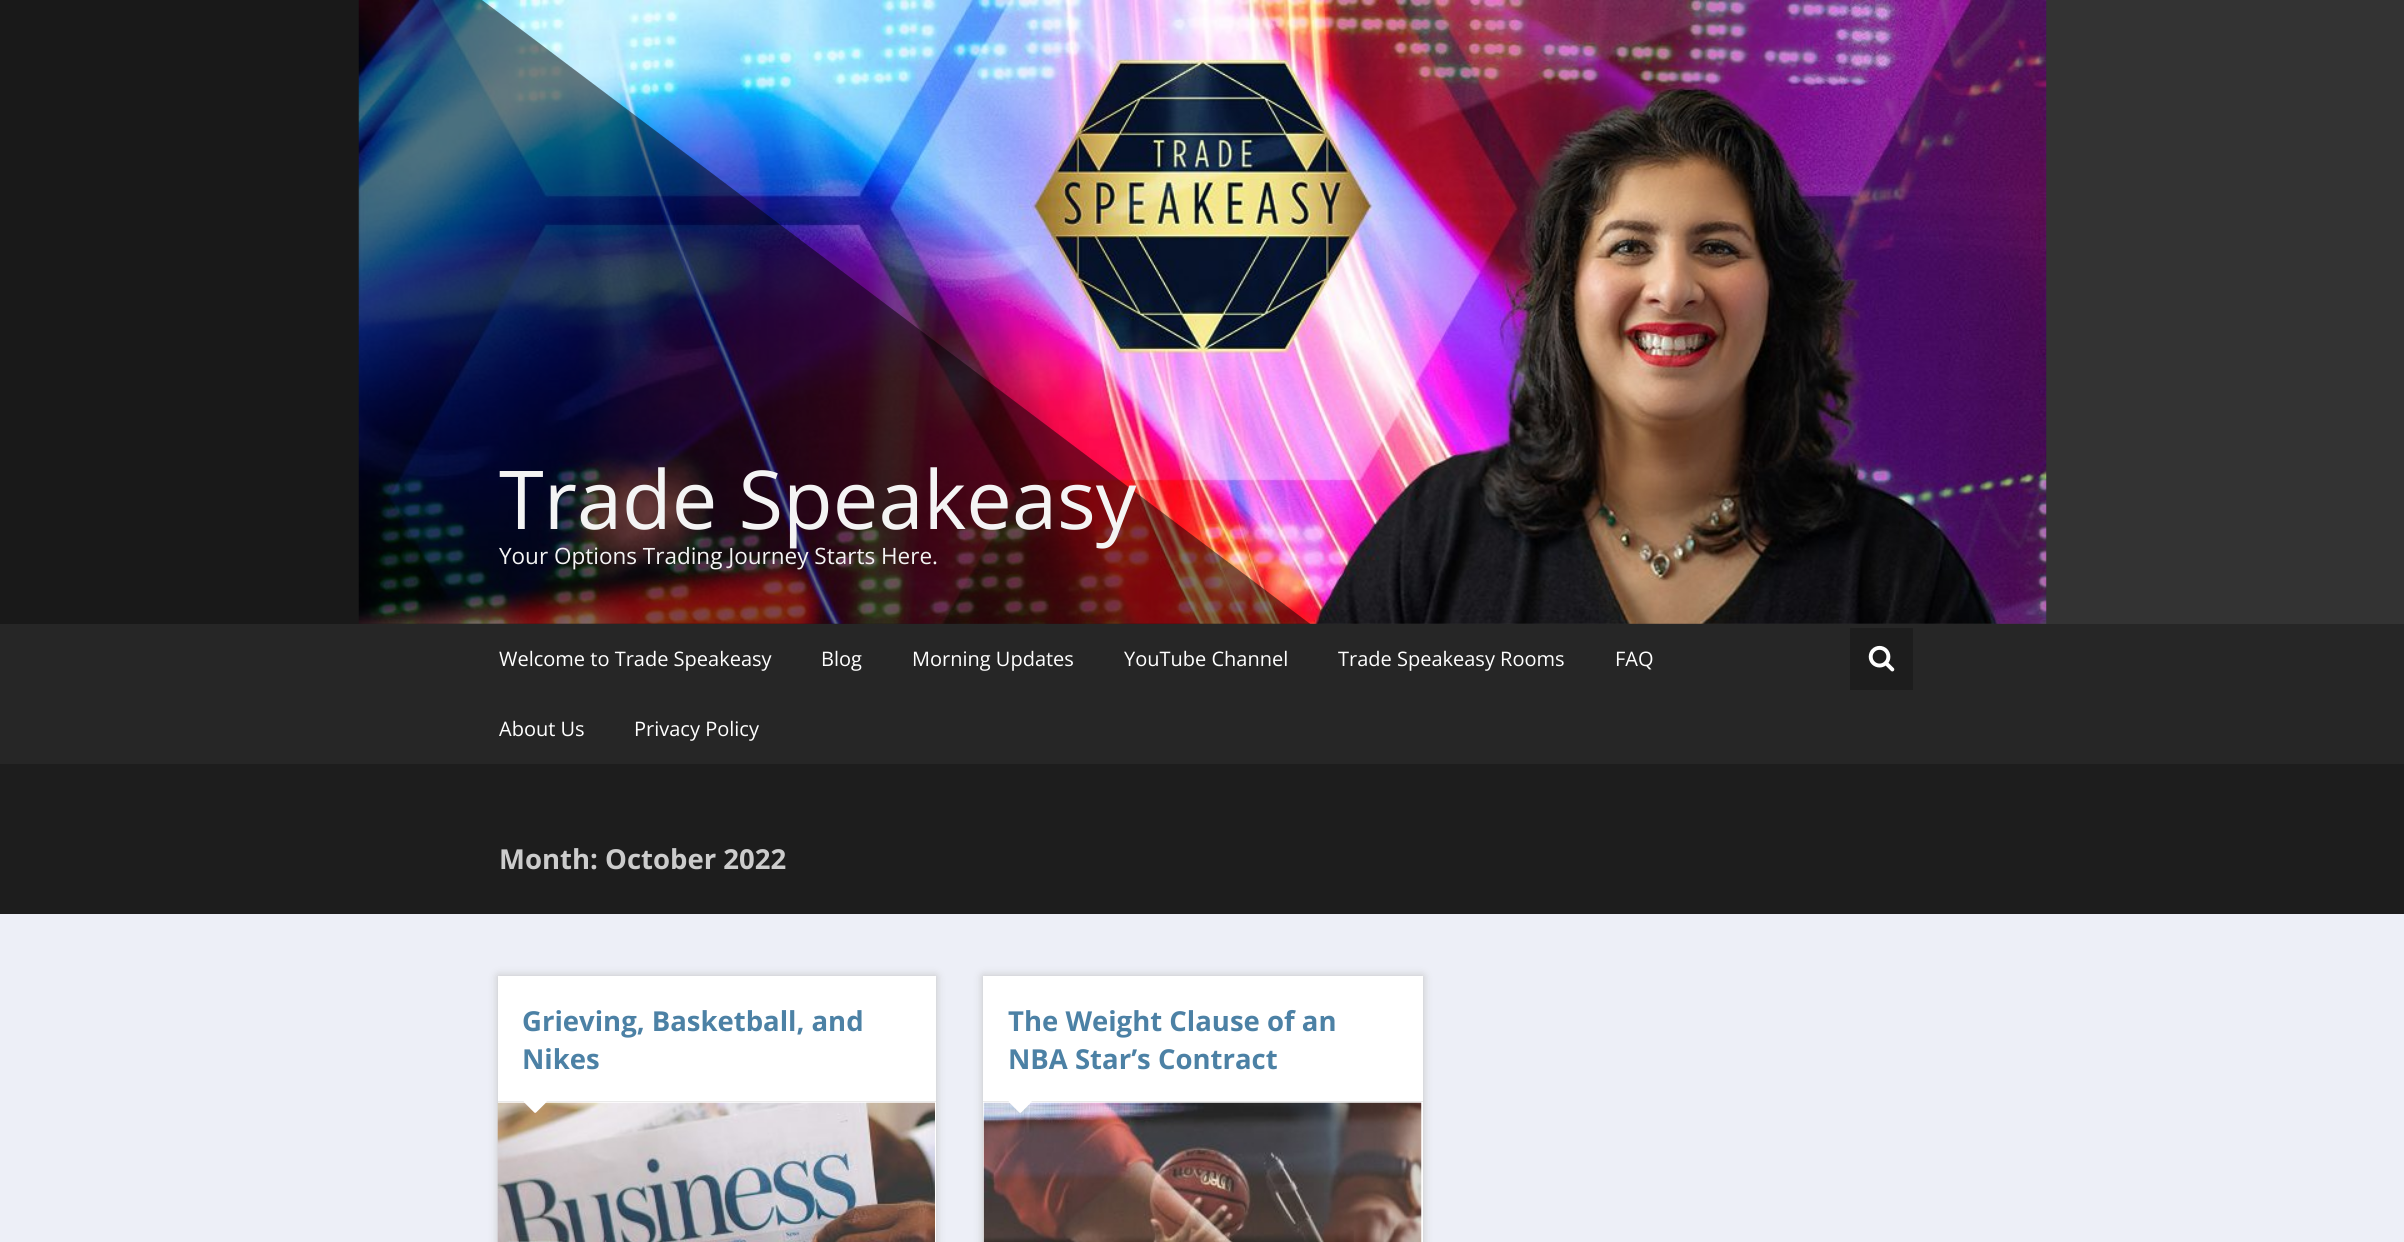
import math
import cairo

surface = cairo.ImageSurface(cairo.FORMAT_RGB24, 2404, 1242)
ctx = cairo.Context(surface)
options = cairo.FontOptions()
options.set_hint_metrics(cairo.HINT_METRICS_OFF)
options.set_hint_style(cairo.HINT_STYLE_NONE)
ctx.set_font_options(options)
ctx.set_miter_limit(4)


def set_color(code):
    ctx.set_source_rgb(*(v / 255 for v in bytes.fromhex(code[-6:])))


def draw_text(x, y, s, family, size, color, bold=False, italic=False):
    ctx.select_font_face(family, cairo.FONT_SLANT_ITALIC if italic else cairo.FONT_SLANT_NORMAL, cairo.FONT_WEIGHT_BOLD if bold else cairo.FONT_WEIGHT_NORMAL)
    ctx.set_font_size(size)
    set_color(color)
    ctx.move_to(x, y)
    ctx.show_text(s)


def fill_rect(x, y, w, h, color):
    set_color(color)
    ctx.rectangle(x, y, w, h)
    ctx.fill()


def rounded_rect(x, y, w, h, r):
    ctx.new_sub_path()
    for i, (u, v) in enumerate([(x + w - r, y + h - r), (x + r, y + h - r), (x + r, y + r), (x + w - r, y + r)]):
        ctx.arc(u, v, r, i * math.pi / 2, (i + 1) * math.pi / 2)
    ctx.close_path()


def draw_shadow(x, y, w, h, r, blur, alpha):
    ctx.push_group_with_content(cairo.CONTENT_ALPHA)
    ctx.set_operator(cairo.OPERATOR_SOURCE)
    for i in range(15, -16, -2):
        e = blur * i / 6
        if min(w, h) + 2 * e > 0:
            ctx.set_source_rgba(0, 0, 0, alpha * math.erfc((i - 1) / 8.5) / 2)
            rounded_rect(x - e, y - e, w + 2 * e, h + 2 * e, max(0, min(r + e + blur * .6, min(w, h) / 2 + e)))
            ctx.fill()
    ctx.mask(ctx.pop_group())


def draw_image(path, x, y, w, h):
    ctx.save()
    ctx.set_source_surface(cairo.ImageSurface.create_from_png(path), x, y)
    ctx.rectangle(x, y, w, h)
    ctx.fill()
    ctx.restore()


set_color("#edeff7")
ctx.paint()
fill_rect(0, 0, 2404, 624, "#333333")
draw_image("assets/img1.png", 358, 0, 1689, 624)
ctx.save()
ctx.rectangle(0, 0, 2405, 624)
ctx.clip()
ctx.set_source_rgba(0, 0, 0, 0.5)
ctx.new_path()
ctx.move_to(-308, -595)
ctx.line_to(1613, 852)
ctx.line_to(860, 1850)
ctx.line_to(-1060, 403)
ctx.close_path()
ctx.fill()
ctx.restore()
draw_text(499, 529, "Trade Speakeasy", "Open Sans", 81.25, "#f4f4f4")
draw_text(499, 564, "Your Options Trading Journey Starts Here.", "Open Sans", 22.5, "#f4f4f4")
fill_rect(0, 624, 2404, 140, "#262626")
draw_text(499, 666, "Welcome to Trade Speakeasy", "Open Sans", 20, "#ffffff")
draw_text(821, 666, "Blog", "Open Sans", 20, "#ffffff")
draw_text(912, 666, "Morning Updates", "Open Sans", 20, "#ffffff")
draw_text(1124, 666, "YouTube Channel", "Open Sans", 20, "#ffffff")
draw_text(1338, 666, "Trade Speakeasy Rooms", "Open Sans", 20, "#ffffff")
draw_text(1615, 666, "FAQ", "Open Sans", 20, "#ffffff")
draw_text(499, 736, "About Us", "Open Sans", 20, "#ffffff")
draw_text(634, 736, "Privacy Policy", "Open Sans", 20, "#ffffff")
fill_rect(1850, 628, 63, 62, "#1d1d1d")
draw_image("assets/img2.png", 1868, 645, 27, 27)
fill_rect(0, 764, 2404, 150, "#1d1d1d")
draw_text(499, 869, "Month: October 2022", "Open Sans", 27.5, "#cccccc", bold=True)
set_color("#c2c2c2")
draw_shadow(498, 976, 438, 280, 0, 4.5, 1)
fill_rect(498, 976, 438, 266, "#ffffff")
fill_rect(498, 1101, 438, 1, "#eaeaea")
draw_text(522, 1031, "Grieving, Basketball, and", "Open Sans", 27.5, "#4c81a5", bold=True)
draw_text(522, 1069, "Nikes", "Open Sans", 27.5, "#4c81a5", bold=True)
draw_image("assets/img4.png", 497, 1102, 438, 140)
draw_image("assets/img3.png", 523, 1101, 24, 12)
set_color("#c2c2c2")
draw_shadow(983, 976, 440, 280, 0, 4.5, 1)
fill_rect(983, 976, 440, 266, "#ffffff")
fill_rect(983, 1101, 440, 1, "#eaeaea")
draw_text(1008, 1031, "The Weight Clause of an", "Open Sans", 27.5, "#4c81a5", bold=True)
draw_text(1008, 1069, "NBA Star’s Contract", "Open Sans", 27.5, "#4c81a5", bold=True)
draw_image("assets/img6.png", 983, 1102, 439, 140)
draw_image("assets/img5.png", 1008, 1101, 24, 12)
surface.write_to_png("output.png")
